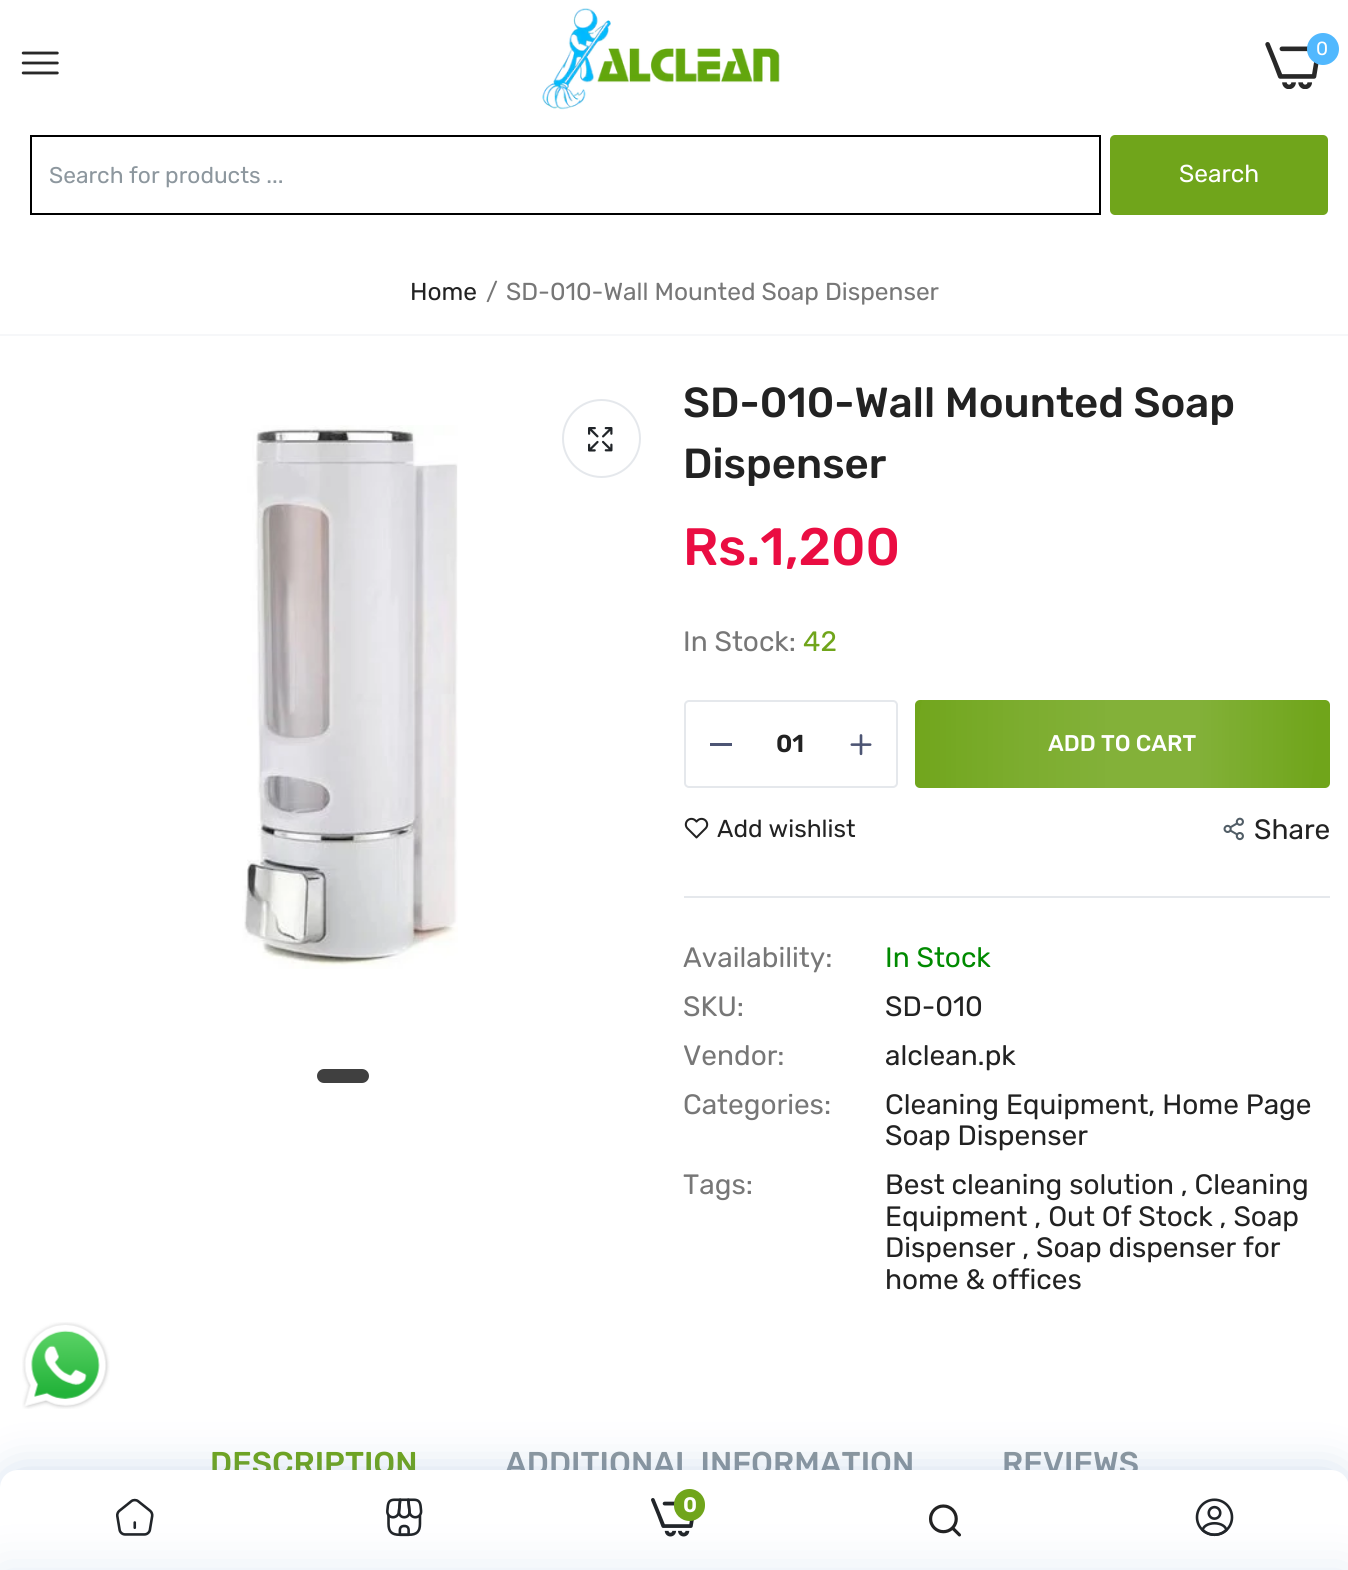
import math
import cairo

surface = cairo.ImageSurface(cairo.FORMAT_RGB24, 1348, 1570)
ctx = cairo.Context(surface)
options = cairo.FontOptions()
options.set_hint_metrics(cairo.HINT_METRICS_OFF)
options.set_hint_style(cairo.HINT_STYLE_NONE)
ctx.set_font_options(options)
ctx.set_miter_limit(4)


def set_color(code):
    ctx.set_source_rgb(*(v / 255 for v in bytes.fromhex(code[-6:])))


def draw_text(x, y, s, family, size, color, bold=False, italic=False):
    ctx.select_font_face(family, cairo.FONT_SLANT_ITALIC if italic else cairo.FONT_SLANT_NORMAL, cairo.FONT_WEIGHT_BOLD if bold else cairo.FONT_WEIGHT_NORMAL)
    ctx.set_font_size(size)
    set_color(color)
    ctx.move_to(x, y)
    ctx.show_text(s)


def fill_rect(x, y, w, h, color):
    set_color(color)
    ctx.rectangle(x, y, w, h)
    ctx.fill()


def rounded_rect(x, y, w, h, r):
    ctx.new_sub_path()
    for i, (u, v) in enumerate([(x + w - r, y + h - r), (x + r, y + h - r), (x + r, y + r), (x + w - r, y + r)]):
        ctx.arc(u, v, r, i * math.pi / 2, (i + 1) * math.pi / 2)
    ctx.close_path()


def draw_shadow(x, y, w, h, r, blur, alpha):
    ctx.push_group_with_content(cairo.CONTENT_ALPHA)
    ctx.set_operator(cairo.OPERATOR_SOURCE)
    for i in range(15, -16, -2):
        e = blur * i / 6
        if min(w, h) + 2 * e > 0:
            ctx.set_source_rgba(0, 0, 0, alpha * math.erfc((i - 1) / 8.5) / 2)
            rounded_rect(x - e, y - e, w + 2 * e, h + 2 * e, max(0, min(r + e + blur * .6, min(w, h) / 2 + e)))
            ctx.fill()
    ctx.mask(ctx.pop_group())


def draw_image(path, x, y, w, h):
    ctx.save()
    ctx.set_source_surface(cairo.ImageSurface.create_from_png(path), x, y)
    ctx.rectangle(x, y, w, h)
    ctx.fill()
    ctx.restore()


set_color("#ffffff")
ctx.paint()
draw_image("assets/img1.png", 542, 8, 238, 102)
draw_image("assets/img2.png", 1265, 42, 54, 47)
set_color("#51b8fe")
ctx.arc(1323, 49, 16, 0, 2 * math.pi)
ctx.fill()
draw_text(1316, 55, "0", "Rubik", 19, "#ffffff")
draw_image("assets/img3.png", 21, 51, 38, 24)
ctx.rectangle(31, 136, 1069, 78)
set_color("#000000")
ctx.stroke()
draw_text(49, 183, "Search for products ...", "Rubik", 22.75, "#8d979e")
set_color("#70a51b")
rounded_rect(1110, 135, 218, 80, 5)
ctx.fill()
draw_text(1179, 182, "Search", "Rubik", 24.5, "#ffffff")
fill_rect(0, 334, 1348, 2, "#f6f7f9")
draw_text(410, 300, "Home", "Rubik", 24.5, "#222222")
draw_text(486, 300, "/", "Rubik", 24.5, "#777777")
draw_text(506, 300, "SD-010-Wall Mounted Soap Dispenser", "Rubik", 24.5, "#777777")
draw_image("assets/img4.png", 242, 425, 216, 544)
set_color("#404040")
rounded_rect(317, 1069, 52, 14, 7)
ctx.fill()
ctx.arc(601.5, 438.5, 38.5, 0, 2 * math.pi)
set_color("#e5e8ec")
ctx.stroke()
draw_image("assets/img5.png", 588, 427, 25, 25)
draw_text(683, 417, "SD-010-Wall Mounted Soap", "Rubik Medium", 42, "#222222")
draw_text(683, 478, "Dispenser", "Rubik Medium", 42, "#222222")
draw_text(683, 565, "Rs.1,200", "Rubik Medium", 52.5, "#ea0d42")
draw_text(683, 651, "In Stock:", "Rubik", 28, "#777777")
draw_text(803, 651, "42", "Rubik", 28, "#70a51b")
rounded_rect(685, 701, 212, 86, 4)
set_color("#e5e8ec")
ctx.stroke()
fill_rect(710, 743, 22, 3, "#4d5574")
draw_text(776, 752, "01", "Rubik SemiBold", 24.5, "#222222")
draw_image("assets/img6.png", 850, 734, 22, 22)
set_color("#70a51b")
rounded_rect(915, 700, 415, 88, 5)
ctx.fill()
gradient = cairo.LinearGradient(902, 744, 1318, 744)
gradient.add_color_stop_rgba(0, 1, 1, 1, 0)
gradient.add_color_stop_rgba(0.01, 1, 1, 1, 0)
gradient.add_color_stop_rgba(0.3, 1, 1, 1, 0.09)
gradient.add_color_stop_rgba(0.5, 1, 1, 1, 0.13)
gradient.add_color_stop_rgba(0.71, 1, 1, 1, 0.13)
gradient.add_color_stop_rgba(1, 1, 1, 1, 0)
ctx.set_source(gradient)
ctx.new_path()
ctx.move_to(922, 700)
ctx.line_to(1325, 700)
ctx.line_to(1310, 788)
ctx.line_to(907, 788)
ctx.close_path()
ctx.fill()
draw_text(1048, 751, "ADD TO CART", "Rubik Medium", 22.75, "#ffffff")
fill_rect(684, 896, 646, 2, "#e5e8ec")
draw_image("assets/img7.png", 684, 817, 25, 22)
draw_text(717, 837, "Add wishlist", "Rubik", 24.5, "#222222")
draw_image("assets/img8.png", 1223, 817, 21, 24)
draw_text(1254, 839, "Share", "Rubik", 28, "#222222")
draw_text(683, 967, "Availability:", "Rubik", 28, "#777777")
draw_text(885, 967, "In Stock", "Rubik", 28, "#008a00")
draw_text(683, 1016, "SKU:", "Rubik", 28, "#777777")
draw_text(885, 1016, "SD-010", "Rubik", 28, "#222222")
draw_text(683, 1065, "Vendor:", "Rubik", 28, "#777777")
draw_text(885, 1065, "alclean.pk", "Rubik", 28, "#222222")
draw_text(683, 1114, "Categories:", "Rubik", 28, "#777777")
draw_text(885, 1114, "Cleaning Equipment, Home Page", "Rubik", 28, "#222222")
draw_text(885, 1145, "Soap Dispenser", "Rubik", 28, "#222222")
draw_text(683, 1194, "Tags:", "Rubik", 28, "#777777")
draw_text(885, 1194, "Best cleaning solution , Cleaning", "Rubik", 28, "#222222")
draw_text(885, 1226, "Equipment , Out Of Stock , Soap", "Rubik", 28, "#222222")
draw_text(885, 1257, "Dispenser , Soap dispenser for", "Rubik", 28, "#222222")
draw_text(885, 1289, "home & offices", "Rubik", 28, "#222222")
draw_text(210, 1474, "DESCRIPTION", "Rubik Medium", 31.5, "#70a51b")
draw_text(505, 1474, "ADDITIONAL INFORMATION", "Rubik Medium", 31.5, "#8d979e")
draw_text(1002, 1474, "REVIEWS", "Rubik Medium", 31.5, "#8d979e")
set_color("#487bb7")
draw_shadow(0, 1470, 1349, 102, 18, 22, 0.25)
set_color("#ffffff")
ctx.new_path()
ctx.move_to(18, 1470)
ctx.line_to(1331, 1470)
ctx.curve_to(1341, 1470, 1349, 1478, 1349, 1488)
ctx.line_to(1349, 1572)
ctx.line_to(0, 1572)
ctx.line_to(0, 1488)
ctx.curve_to(0, 1478, 8, 1470, 18, 1470)
ctx.close_path()
ctx.fill()
draw_image("assets/img9.png", 116, 1498, 38, 38)
draw_image("assets/img10.png", 386, 1498, 37, 39)
draw_image("assets/img11.png", 651, 1498, 43, 39)
set_color("#70a51b")
rounded_rect(674, 1489, 31, 32, 15.5)
ctx.fill()
draw_image("assets/img12.png", 929, 1504, 32, 33)
draw_image("assets/img13.png", 1195, 1498, 39, 39)
set_color("#487bb7")
draw_shadow(0, 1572, 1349, 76, 0, 26, 0.15)
draw_text(683, 1512, "0", "Rubik SemiBold", 21, "#ffffff")
draw_image("assets/img14.png", 22, 1322, 88, 87)
surface.write_to_png("output.png")
